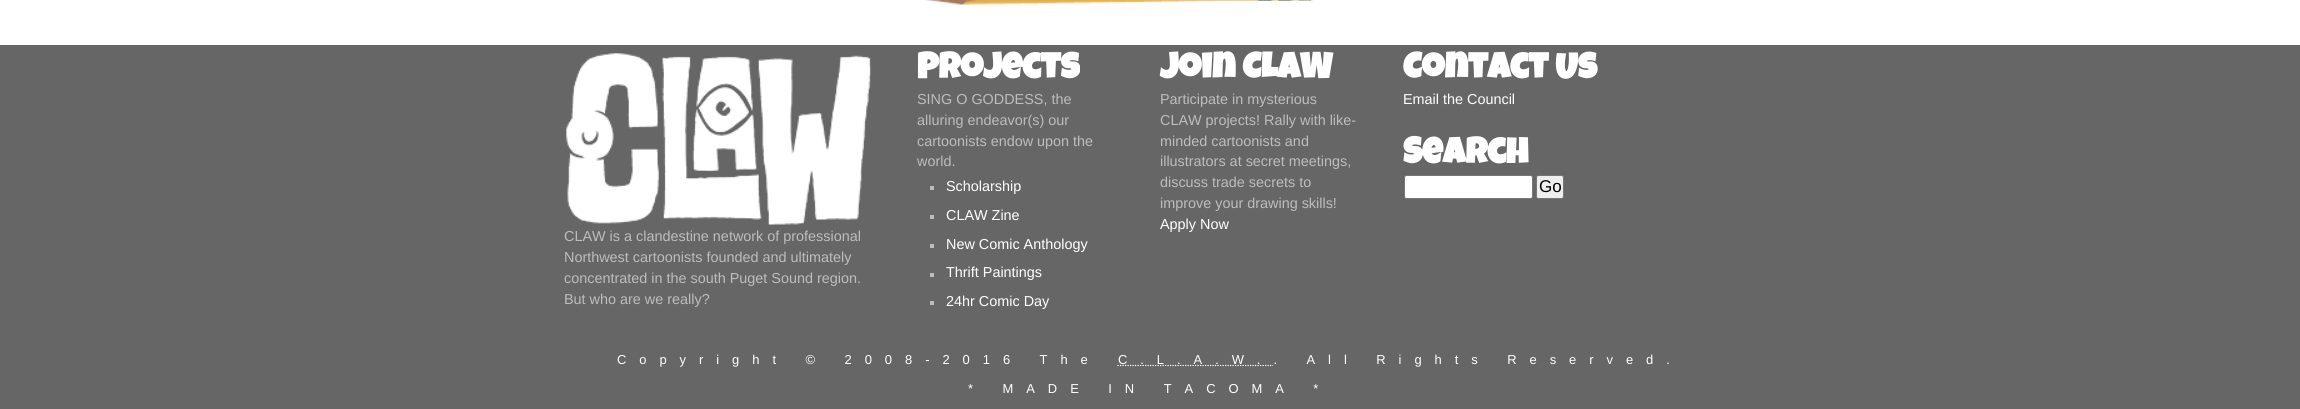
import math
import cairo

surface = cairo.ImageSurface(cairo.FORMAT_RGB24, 2300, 409)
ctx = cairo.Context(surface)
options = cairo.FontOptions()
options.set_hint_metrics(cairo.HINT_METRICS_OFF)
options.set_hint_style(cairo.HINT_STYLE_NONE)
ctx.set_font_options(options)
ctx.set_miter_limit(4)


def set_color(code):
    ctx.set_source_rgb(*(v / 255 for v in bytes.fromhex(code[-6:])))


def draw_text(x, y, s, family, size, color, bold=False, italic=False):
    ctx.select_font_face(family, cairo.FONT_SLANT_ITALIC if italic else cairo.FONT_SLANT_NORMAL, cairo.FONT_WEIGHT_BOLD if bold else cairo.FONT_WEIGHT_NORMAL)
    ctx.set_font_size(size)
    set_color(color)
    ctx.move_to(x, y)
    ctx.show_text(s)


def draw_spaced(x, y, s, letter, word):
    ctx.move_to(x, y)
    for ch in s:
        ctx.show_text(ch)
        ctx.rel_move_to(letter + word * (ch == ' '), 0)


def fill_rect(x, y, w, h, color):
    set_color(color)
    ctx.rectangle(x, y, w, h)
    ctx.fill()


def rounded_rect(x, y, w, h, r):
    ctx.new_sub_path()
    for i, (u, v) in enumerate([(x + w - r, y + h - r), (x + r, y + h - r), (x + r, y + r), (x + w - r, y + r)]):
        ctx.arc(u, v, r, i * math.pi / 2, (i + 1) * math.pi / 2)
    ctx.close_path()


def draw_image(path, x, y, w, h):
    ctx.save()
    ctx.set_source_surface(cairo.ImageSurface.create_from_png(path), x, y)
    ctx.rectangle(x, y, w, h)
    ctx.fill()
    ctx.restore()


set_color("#ffffff")
ctx.paint()
draw_image("assets/img1.png", 925, 0, 388, 5)
fill_rect(0, 45, 2300, 364, "#666666")
draw_text(917, 78, "Projects", "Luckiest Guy", 36, "#ffffff", bold=True)
draw_text(917, 104, "SING O GODDESS, the", "Liberation Sans", 14.4, "#bdbdbd")
draw_text(917, 125, "alluring endeavor(s) our", "Liberation Sans", 14.4, "#bdbdbd")
draw_text(917, 146, "cartoonists endow upon the", "Liberation Sans", 14.4, "#bdbdbd")
draw_text(917, 166, "world.", "Liberation Sans", 14.4, "#bdbdbd")
fill_rect(930, 186, 4, 4, "#bdbdbd")
draw_text(946, 191, "Scholarship", "Liberation Sans", 14.4, "#ffffff")
fill_rect(930, 215, 4, 4, "#bdbdbd")
draw_text(946, 220, "CLAW Zine", "Liberation Sans", 14.4, "#ffffff")
fill_rect(930, 244, 4, 4, "#bdbdbd")
draw_text(946, 249, "New Comic Anthology", "Liberation Sans", 14.4, "#ffffff")
fill_rect(930, 273, 4, 4, "#bdbdbd")
draw_text(946, 277, "Thrift Paintings", "Liberation Sans", 14.4, "#ffffff")
fill_rect(930, 301, 4, 4, "#bdbdbd")
draw_text(946, 306, "24hr Comic Day", "Liberation Sans", 14.4, "#ffffff")
draw_text(1160, 78, "Join CLAW", "Luckiest Guy", 36, "#ffffff", bold=True)
draw_text(1160, 104, "Participate in mysterious", "Liberation Sans", 14.4, "#bdbdbd")
draw_text(1160, 125, "CLAW projects! Rally with like-", "Liberation Sans", 14.4, "#bdbdbd")
draw_text(1160, 146, "minded cartoonists and", "Liberation Sans", 14.4, "#bdbdbd")
draw_text(1160, 166, "illustrators at secret meetings,", "Liberation Sans", 14.4, "#bdbdbd")
draw_text(1160, 187, "discuss trade secrets to", "Liberation Sans", 14.4, "#bdbdbd")
draw_text(1160, 208, "improve your drawing skills!", "Liberation Sans", 14.4, "#bdbdbd")
draw_text(1160, 229, "Apply Now", "Liberation Sans", 14.4, "#ffffff")
draw_text(1403, 78, "Contact Us", "Luckiest Guy", 36, "#ffffff", bold=True)
draw_text(1403, 104, "Email the Council", "Liberation Sans", 14.4, "#ffffff")
draw_text(1403, 163, "Search", "Luckiest Guy", 36, "#ffffff", bold=True)
rounded_rect(1404.5, 175.5, 128, 23, 2)
ctx.fill_preserve()
set_color("#767676")
ctx.set_line_width(1)
ctx.stroke()
set_color("#efefef")
rounded_rect(1536.5, 175.5, 27, 23, 2)
ctx.fill_preserve()
set_color("#767676")
ctx.stroke()
draw_text(1539, 192, "Go", "Liberation Sans", 17, "#000000")
draw_image("assets/img2.png", 566, 53, 305, 173)
draw_text(564, 241, "CLAW is a clandestine network of professional", "Liberation Sans", 14.4, "#bdbdbd")
draw_text(564, 262, "Northwest cartoonists founded and ultimately", "Liberation Sans", 14.4, "#bdbdbd")
draw_text(564, 283, "concentrated in the south Puget Sound region.", "Liberation Sans", 14.4, "#bdbdbd")
draw_text(564, 304, "But who are we really?", "Liberation Sans", 14.4, "#bdbdbd")
ctx.set_font_size(12.95)
set_color("#ffffff")
draw_spaced(617, 364, "Copyright © 2008-2016 The", 12.95, 0)
ctx.new_path()
ctx.move_to(1117.5, 365.5)
ctx.line_to(1273, 365.5)
ctx.set_line_width(1.2)
ctx.set_dash([1.25, 1.25])
ctx.stroke()
draw_spaced(1118, 364, "C.L.A.W.. All Rights Reserved.", 12.95, 0)
draw_spaced(968, 393, "* MADE IN TACOMA *", 12.95, 0)
surface.write_to_png("output.png")
